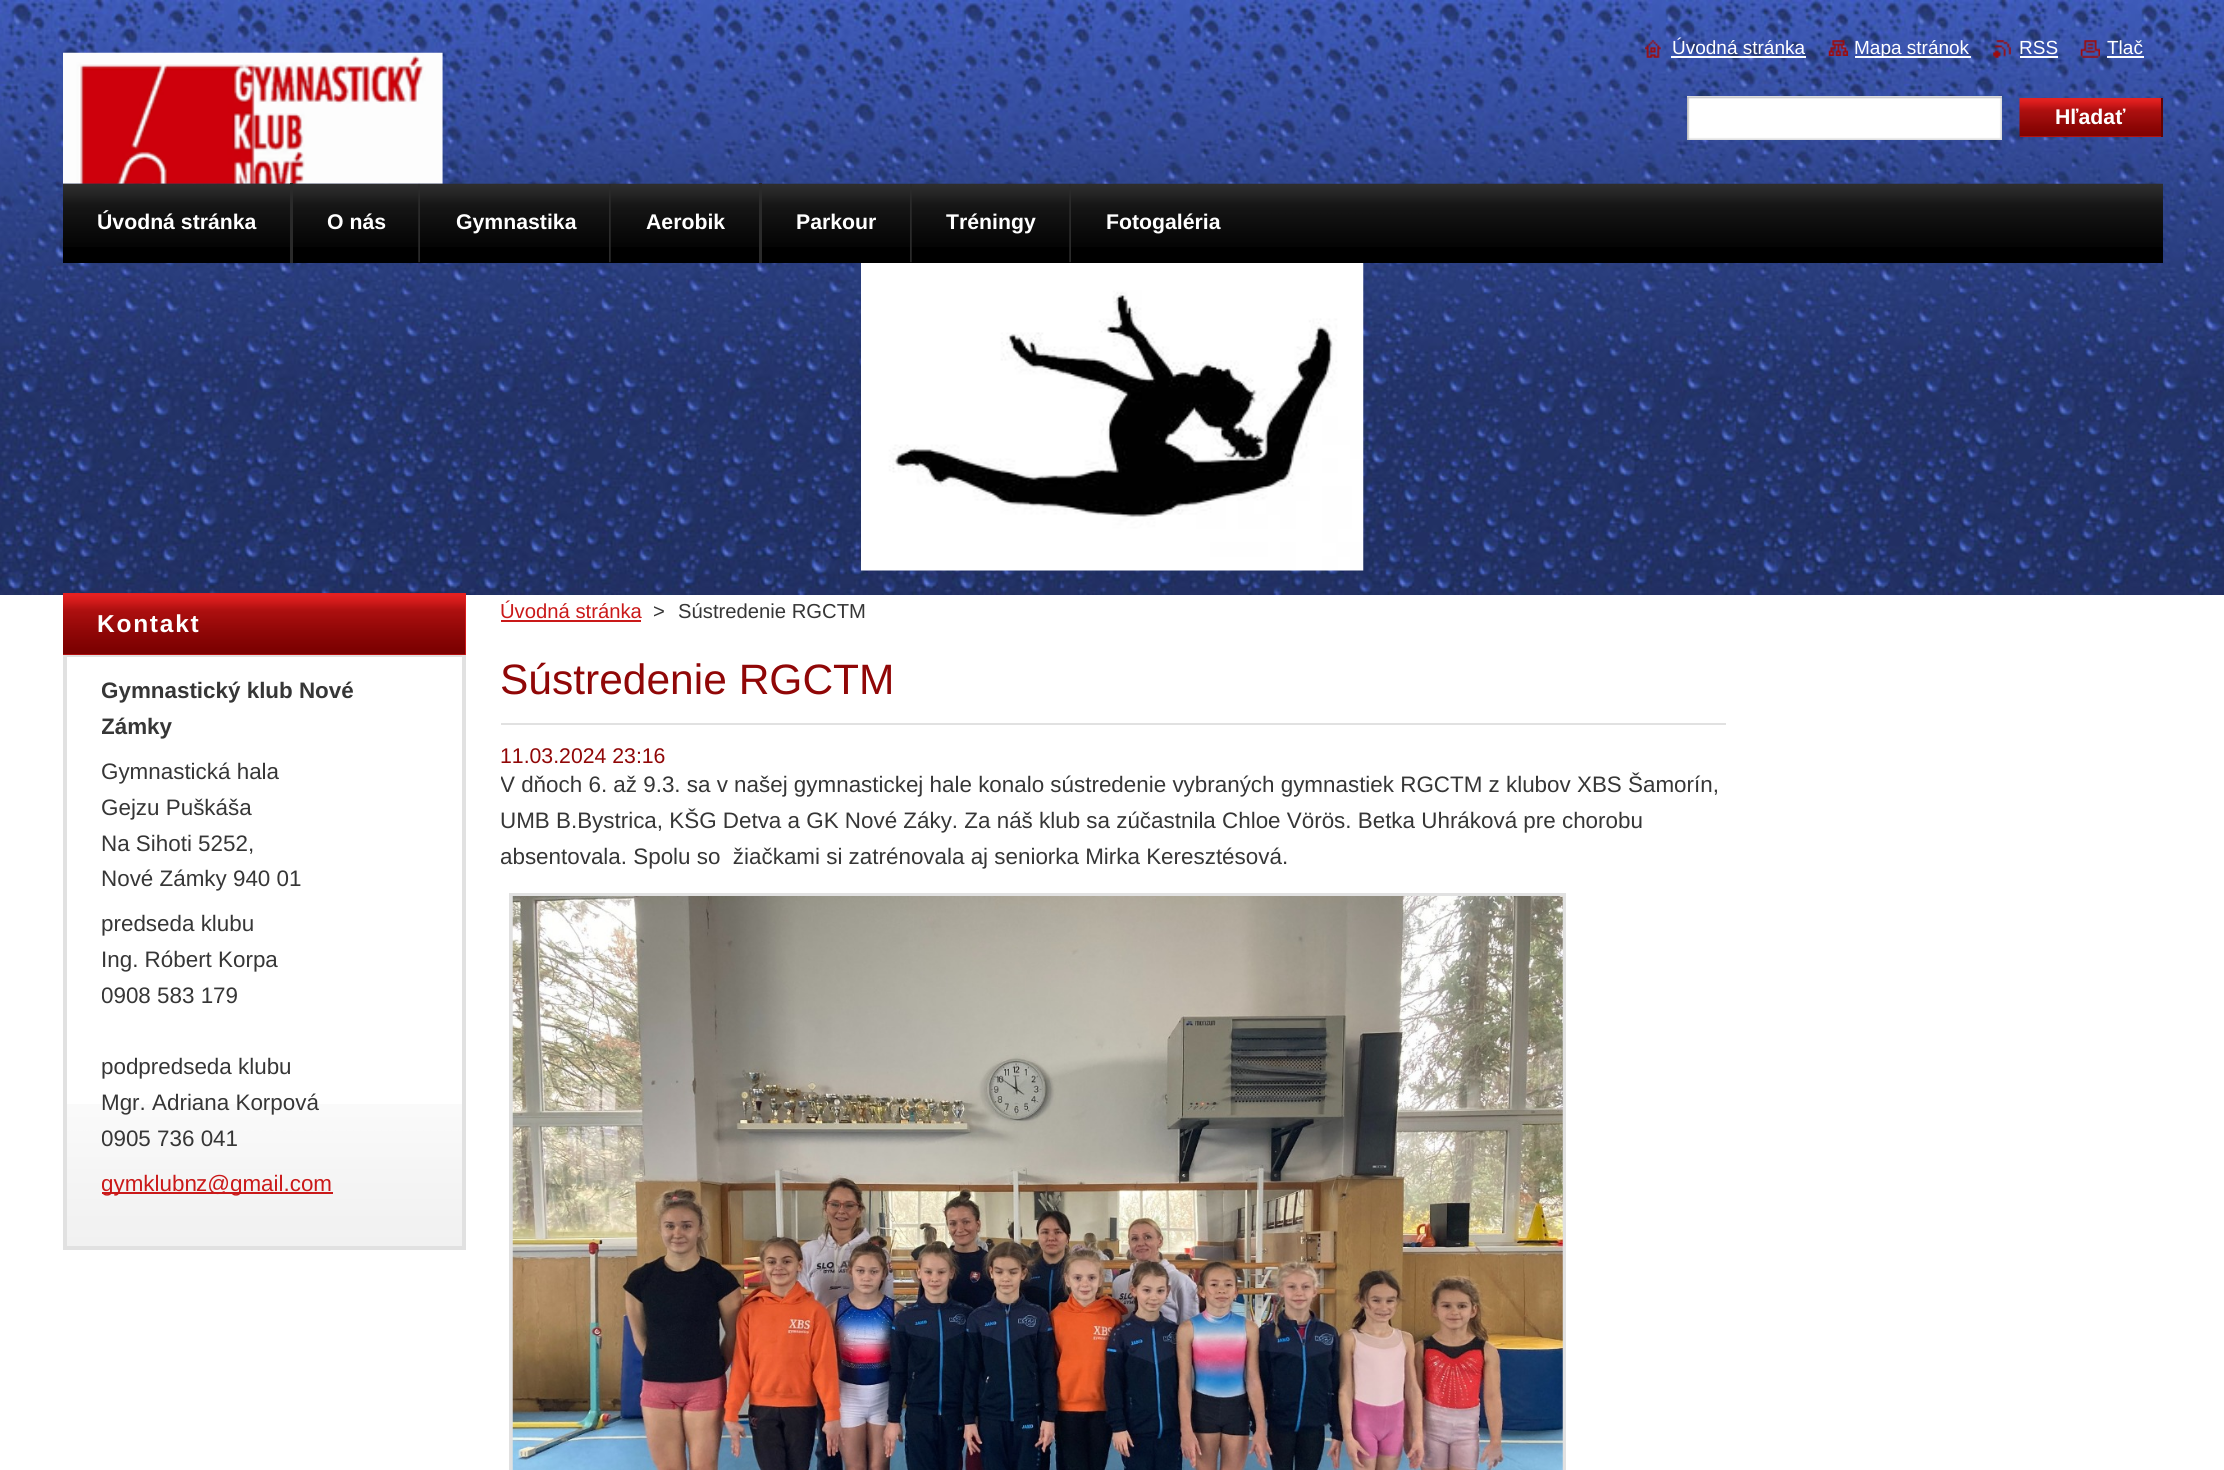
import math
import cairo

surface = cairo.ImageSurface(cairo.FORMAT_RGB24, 2224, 1470)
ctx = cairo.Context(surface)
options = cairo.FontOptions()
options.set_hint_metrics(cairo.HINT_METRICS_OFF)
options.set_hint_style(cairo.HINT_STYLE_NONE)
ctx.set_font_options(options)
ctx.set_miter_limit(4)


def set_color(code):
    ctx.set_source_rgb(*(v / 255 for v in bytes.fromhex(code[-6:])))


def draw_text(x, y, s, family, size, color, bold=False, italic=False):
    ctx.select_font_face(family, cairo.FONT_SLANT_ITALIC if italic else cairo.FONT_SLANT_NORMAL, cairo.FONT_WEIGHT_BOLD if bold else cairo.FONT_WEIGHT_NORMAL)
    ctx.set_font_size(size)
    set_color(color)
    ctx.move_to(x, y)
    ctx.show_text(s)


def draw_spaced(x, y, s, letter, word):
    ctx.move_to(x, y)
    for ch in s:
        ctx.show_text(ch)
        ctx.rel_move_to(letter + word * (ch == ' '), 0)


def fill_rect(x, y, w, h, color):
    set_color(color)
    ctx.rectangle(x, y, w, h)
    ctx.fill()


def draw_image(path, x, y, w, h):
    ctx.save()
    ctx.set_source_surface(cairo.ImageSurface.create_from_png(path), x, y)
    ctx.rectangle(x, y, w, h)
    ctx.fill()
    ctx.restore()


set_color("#ffffff")
ctx.paint()
draw_image("assets/img1.png", 0, 0, 2224, 595)
draw_image("assets/img2.png", 1645, 40, 16, 18)
draw_text(1672, 54, "Úvodná stránka", "Liberation Sans", 19, "#ffffff")
fill_rect(1671, 56, 135, 2, "#ffffff")
draw_image("assets/img3.png", 1828, 40, 20, 16)
fill_rect(1855, 56, 116, 2, "#ffffff")
draw_text(1854, 54, "Mapa stránok", "Liberation Sans", 19, "#ffffff")
draw_image("assets/img4.png", 1993, 40, 18, 18)
draw_text(2019, 54, "RSS", "Liberation Sans", 19, "#ffffff")
fill_rect(2020, 56, 38, 2, "#ffffff")
draw_image("assets/img5.png", 2080, 40, 20, 18)
draw_text(2107, 54, "Tlač", "Liberation Sans", 19, "#ffffff")
fill_rect(2107, 56, 37, 2, "#ffffff")
draw_image("assets/img6.png", 63, 52, 380, 132)
fill_rect(1687, 96, 315, 1, "#ffffff")
draw_image("assets/img7.png", 1687, 96, 315, 44)
fill_rect(2020, 136, 141, 1, "#e52020")
draw_image("assets/img8.png", 2019, 98, 142, 39)
fill_rect(2161, 98, 2, 39, "#610303")
draw_text(2055, 124, "Hľadať", "Liberation Sans", 21.25, "#ffffff", bold=True)
fill_rect(63, 247, 2100, 16, "#000000")
draw_image("assets/img9.png", 63, 183, 2100, 64)
fill_rect(290, 183, 3, 80, "#2a2a2a")
draw_text(97, 229, "Úvodná stránka", "Liberation Sans", 21.25, "#ffffff", bold=True)
draw_image("assets/img10.png", 418, 183, 2, 80)
draw_text(327, 229, "O nás", "Liberation Sans", 21.25, "#ffffff", bold=True)
draw_image("assets/img11.png", 609, 183, 2, 80)
draw_text(456, 229, "Gymnastika", "Liberation Sans", 21.25, "#ffffff", bold=True)
fill_rect(759, 183, 3, 80, "#2a2a2a")
draw_text(646, 229, "Aerobik", "Liberation Sans", 21.25, "#ffffff", bold=True)
draw_image("assets/img12.png", 910, 183, 2, 80)
draw_text(796, 229, "Parkour", "Liberation Sans", 21.25, "#ffffff", bold=True)
draw_image("assets/img13.png", 1069, 183, 2, 80)
draw_text(946, 229, "Tréningy", "Liberation Sans", 21.25, "#ffffff", bold=True)
draw_text(1106, 229, "Fotogaléria", "Liberation Sans", 21.25, "#ffffff", bold=True)
draw_image("assets/img14.png", 861, 263, 503, 308)
draw_image("assets/img15.png", 67, 1104, 395, 142)
fill_rect(63, 593, 403, 62, "#e52020")
draw_image("assets/img16.png", 63, 596, 403, 59)
fill_rect(63, 655, 403, 2, "#e1e1e1")
ctx.set_font_size(24.5)
set_color("#ffffff")
draw_spaced(97, 632, "Kontakt", 1.75, 0)
fill_rect(462, 656, 4, 594, "#e1e1e1")
fill_rect(63, 1246, 403, 4, "#e1e1e1")
fill_rect(63, 656, 4, 594, "#e1e1e1")
ctx.save()
ctx.rectangle(102, 656, 325, 555)
ctx.clip()
draw_text(101, 698, "Gymnastický klub Nové", "Liberation Sans", 22.4, "#363636", bold=True)
draw_text(101, 734, "Zámky", "Liberation Sans", 22.4, "#363636", bold=True)
draw_text(101, 779, "Gymnastická hala", "Liberation Sans", 22.4, "#363636")
draw_text(101, 815, "Gejzu Puškáša", "Liberation Sans", 22.4, "#363636")
ctx.restore()
draw_text(101, 851, "Na Sihoti 5252,", "Liberation Sans", 22.4, "#363636")
draw_text(101, 886, "Nové Zámky 940 01", "Liberation Sans", 22.4, "#363636")
draw_text(101, 931, "predseda klubu", "Liberation Sans", 22.4, "#363636")
draw_text(101, 967, "Ing. Róbert Korpa", "Liberation Sans", 22.4, "#363636")
ctx.save()
ctx.rectangle(102, 656, 325, 555)
ctx.clip()
draw_text(101, 1003, "0908 583 179", "Liberation Sans", 22.4, "#363636")
ctx.restore()
draw_text(101, 1074, "podpredseda klubu", "Liberation Sans", 22.4, "#363636")
draw_text(101, 1110, "Mgr. Adriana Korpová", "Liberation Sans", 22.4, "#363636")
ctx.save()
ctx.rectangle(102, 656, 325, 555)
ctx.clip()
draw_text(101, 1146, "0905 736 041", "Liberation Sans", 22.4, "#363636")
ctx.restore()
fill_rect(102, 1192, 231, 2, "#ca1919")
ctx.save()
ctx.rectangle(102, 656, 325, 555)
ctx.clip()
draw_text(101, 1191, "gymklubn", "Liberation Sans", 22.4, "#ca1919")
ctx.restore()
draw_text(196, 1191, "z@gmail.com", "Liberation Sans", 22.4, "#ca1919")
draw_text(500, 618, "Úvodná stránka", "Liberation Sans", 20.25, "#ca1919")
fill_rect(501, 620, 140, 2, "#ca1919")
draw_text(653, 618, ">", "Liberation Sans", 20.25, "#363636")
draw_text(678, 618, "Sústredenie RGCTM", "Liberation Sans", 20.25, "#363636")
fill_rect(501, 723, 1225, 2, "#e1e1e1")
draw_text(500, 694, "Sústredenie RGCTM", "Liberation Sans", 42.5, "#900707")
draw_text(500, 763, "11.03.2024 23:16", "Liberation Sans", 21.25, "#900707")
ctx.save()
ctx.rectangle(501, 742, 1225, 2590)
ctx.clip()
draw_text(500, 792, "V dňoch 6. až 9.3. sa v našej gymnastickej hale konalo sústredenie vybraných gymnastiek RGCTM z klubov XBS Šamorín,", "Liberation Sans", 22.4, "#363636")
ctx.restore()
draw_text(500, 828, "UMB B.Bystrica, KŠG Detva a GK Nové Záky. Za náš klub sa zúčastnila Chloe Vörös. Betka Uhráková pre chorobu", "Liberation Sans", 22.4, "#363636")
ctx.save()
ctx.rectangle(501, 742, 1225, 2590)
ctx.clip()
draw_text(500, 864, "absentovala. Spolu so  žiačkami si zatrénovala aj seniorka Mirka Keresztésová.", "Liberation Sans", 22.4, "#363636")
ctx.restore()
ctx.rectangle(511, 895, 1053, 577)
set_color("#e1e1e1")
ctx.set_line_width(4)
ctx.stroke()
draw_image("assets/img17.png", 512, 896, 1051, 574)
surface.write_to_png("output.png")
